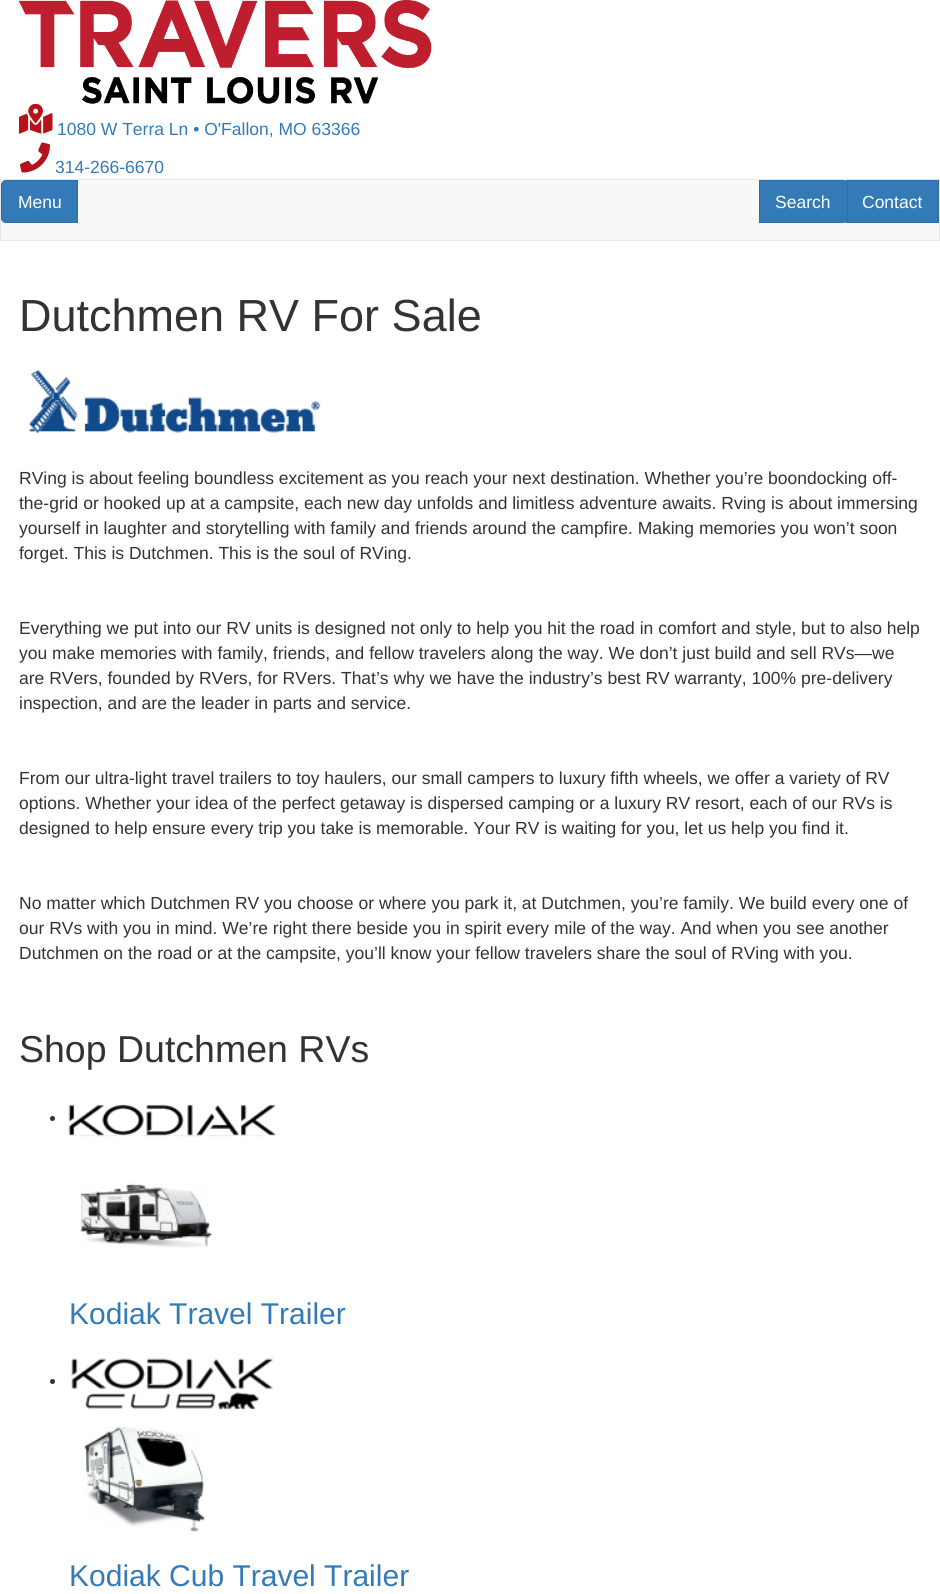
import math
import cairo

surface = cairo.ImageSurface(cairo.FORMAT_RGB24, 940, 1594)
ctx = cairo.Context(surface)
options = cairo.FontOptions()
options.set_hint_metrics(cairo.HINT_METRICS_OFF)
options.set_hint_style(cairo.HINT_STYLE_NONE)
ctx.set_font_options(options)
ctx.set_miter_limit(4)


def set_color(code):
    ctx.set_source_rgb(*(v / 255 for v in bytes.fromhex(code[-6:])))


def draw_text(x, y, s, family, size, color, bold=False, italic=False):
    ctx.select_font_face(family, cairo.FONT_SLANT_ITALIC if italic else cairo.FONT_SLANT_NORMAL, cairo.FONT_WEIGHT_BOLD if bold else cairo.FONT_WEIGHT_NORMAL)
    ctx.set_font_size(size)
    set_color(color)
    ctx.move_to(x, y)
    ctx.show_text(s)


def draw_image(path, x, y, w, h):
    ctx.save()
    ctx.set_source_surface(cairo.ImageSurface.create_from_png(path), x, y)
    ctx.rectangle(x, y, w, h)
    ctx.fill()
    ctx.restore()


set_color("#ffffff")
ctx.paint()
draw_image("assets/img1.png", 18, 0, 414, 104)
draw_image("assets/img2.png", 19, 104, 34, 30)
draw_text(57, 135, "1080 W Terra Ln • O'Fallon, MO 63366", "Liberation Sans", 17.5, "#337ab7")
draw_image("assets/img3.png", 20, 142, 30, 31)
draw_text(55, 173, "314-266-6670", "Liberation Sans", 17.5, "#337ab7")
set_color("#f8f8f8")
ctx.rectangle(0.5, 179.5, 939, 61)
ctx.fill_preserve()
set_color("#e7e7e7")
ctx.set_line_width(1)
ctx.stroke()
set_color("#337ab7")
ctx.new_path()
ctx.move_to(6, 180.5)
ctx.line_to(77.5, 180.5)
ctx.line_to(77.5, 222.5)
ctx.line_to(6, 222.5)
ctx.curve_to(3.5, 222.5, 1.5, 220.5, 1.5, 218)
ctx.line_to(1.5, 185)
ctx.curve_to(1.5, 182.5, 3.5, 180.5, 6, 180.5)
ctx.close_path()
ctx.fill_preserve()
set_color("#2e6da4")
ctx.stroke()
draw_text(18, 208, "Menu", "Liberation Sans", 17.5, "#ffffff")
set_color("#337ab7")
ctx.rectangle(846.5, 180.5, 92, 42)
ctx.fill_preserve()
set_color("#2e6da4")
ctx.stroke()
set_color("#337ab7")
ctx.new_path()
ctx.move_to(759.5, 180.5)
ctx.line_to(843, 180.5)
ctx.curve_to(845.5, 180.5, 847.5, 182.5, 847.5, 185)
ctx.line_to(847.5, 218)
ctx.curve_to(847.5, 220.5, 845.5, 222.5, 843, 222.5)
ctx.line_to(759.5, 222.5)
ctx.close_path()
ctx.fill_preserve()
set_color("#2e6da4")
ctx.stroke()
draw_text(775, 208, "Search", "Liberation Sans", 17.5, "#ffffff")
draw_text(862, 208, "Contact", "Liberation Sans", 17.5, "#ffffff")
draw_text(19, 331, "Dutchmen RV For Sale", "Liberation Sans", 45, "#333333")
draw_image("assets/img4.png", 28, 369, 293, 65)
draw_text(19, 484, "RVing is about feeling boundless excitement as you reach your next destination. Whether you’re boondocking off-", "Liberation Sans", 17.5, "#333333")
draw_text(19, 509, "the-grid or hooked up at a campsite, each new day unfolds and limitless adventure awaits. Rving is about immersing", "Liberation Sans", 17.5, "#333333")
draw_text(19, 534, "yourself in laughter and storytelling with family and friends around the campfire. Making memories you won’t soon", "Liberation Sans", 17.5, "#333333")
draw_text(19, 559, "forget. This is Dutchmen. This is the soul of RVing.", "Liberation Sans", 17.5, "#333333")
draw_text(19, 634, "Everything we put into our RV units is designed not only to help you hit the road in comfort and style, but to also help", "Liberation Sans", 17.5, "#333333")
draw_text(19, 659, "you make memories with family, friends, and fellow travelers along the way. We don’t just build and sell RVs—we", "Liberation Sans", 17.5, "#333333")
draw_text(19, 684, "are RVers, founded by RVers, for RVers. That’s why we have the industry’s best RV warranty, 100% pre-delivery", "Liberation Sans", 17.5, "#333333")
draw_text(19, 709, "inspection, and are the leader in parts and service.", "Liberation Sans", 17.5, "#333333")
draw_text(19, 784, "From our ultra-light travel trailers to toy haulers, our small campers to luxury fifth wheels, we offer a variety of RV", "Liberation Sans", 17.5, "#333333")
draw_text(19, 809, "options. Whether your idea of the perfect getaway is dispersed camping or a luxury RV resort, each of our RVs is", "Liberation Sans", 17.5, "#333333")
draw_text(19, 834, "designed to help ensure every trip you take is memorable. Your RV is waiting for you, let us help you find it.", "Liberation Sans", 17.5, "#333333")
draw_text(19, 909, "No matter which Dutchmen RV you choose or where you park it, at Dutchmen, you’re family. We build every one of", "Liberation Sans", 17.5, "#333333")
draw_text(19, 934, "our RVs with you in mind. We’re right there beside you in spirit every mile of the way. And when you see another", "Liberation Sans", 17.5, "#333333")
draw_text(19, 959, "Dutchmen on the road or at the campsite, you’ll know your fellow travelers share the soul of RVing with you.", "Liberation Sans", 17.5, "#333333")
draw_text(19, 1062, "Shop Dutchmen RVs", "Liberation Sans", 37.5, "#333333")
ctx.new_path()
ctx.arc(52.5, 1118.5, 2.5, 0, 2 * math.pi)
ctx.fill()
draw_image("assets/img5.png", 68, 1104, 208, 33)
draw_image("assets/img6.png", 80, 1183, 133, 65)
draw_text(69, 1324, "Kodiak Travel Trailer", "Liberation Sans", 30, "#337ab7")
set_color("#333333")
ctx.new_path()
ctx.arc(52.5, 1381.5, 2.5, 0, 2 * math.pi)
ctx.fill()
draw_image("assets/img7.png", 71, 1358, 202, 52)
draw_image("assets/img8.png", 84, 1427, 121, 105)
draw_text(69, 1586, "Kodiak Cub Travel Trailer", "Liberation Sans", 30, "#337ab7")
surface.write_to_png("output.png")
